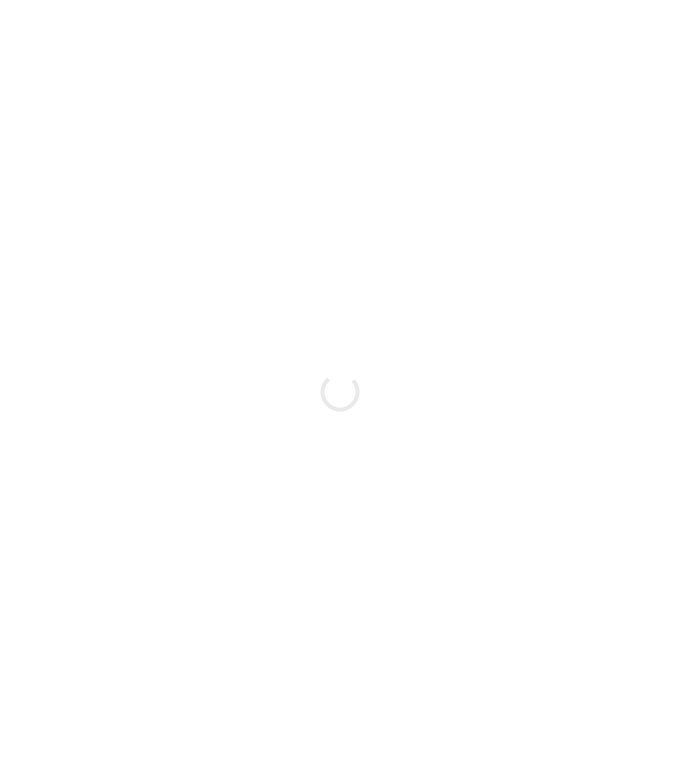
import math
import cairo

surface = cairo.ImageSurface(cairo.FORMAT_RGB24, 679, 784)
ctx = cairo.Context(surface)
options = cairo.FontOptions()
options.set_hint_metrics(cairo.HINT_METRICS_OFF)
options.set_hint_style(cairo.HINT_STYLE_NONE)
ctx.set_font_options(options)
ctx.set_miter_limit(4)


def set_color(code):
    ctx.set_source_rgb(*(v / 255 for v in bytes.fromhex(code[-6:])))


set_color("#ffffff")
ctx.paint()
ctx.new_path()
ctx.move_to(353, 380.5)
ctx.curve_to(367, 396, 346.5, 418.5, 329.5, 406)
ctx.curve_to(326, 403.5, 323.5, 399, 322.5, 394.5)
ctx.curve_to(322, 388.5, 324, 383, 328.5, 379)
set_color("#e9e9e9")
ctx.set_line_width(4)
ctx.stroke()
surface.write_to_png("output.png")
